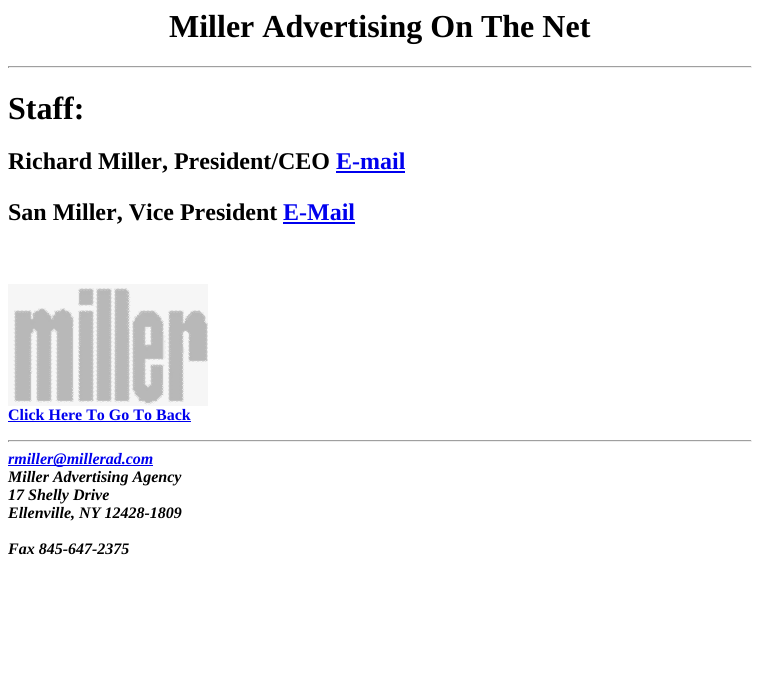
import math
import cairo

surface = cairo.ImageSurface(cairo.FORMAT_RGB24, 760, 693)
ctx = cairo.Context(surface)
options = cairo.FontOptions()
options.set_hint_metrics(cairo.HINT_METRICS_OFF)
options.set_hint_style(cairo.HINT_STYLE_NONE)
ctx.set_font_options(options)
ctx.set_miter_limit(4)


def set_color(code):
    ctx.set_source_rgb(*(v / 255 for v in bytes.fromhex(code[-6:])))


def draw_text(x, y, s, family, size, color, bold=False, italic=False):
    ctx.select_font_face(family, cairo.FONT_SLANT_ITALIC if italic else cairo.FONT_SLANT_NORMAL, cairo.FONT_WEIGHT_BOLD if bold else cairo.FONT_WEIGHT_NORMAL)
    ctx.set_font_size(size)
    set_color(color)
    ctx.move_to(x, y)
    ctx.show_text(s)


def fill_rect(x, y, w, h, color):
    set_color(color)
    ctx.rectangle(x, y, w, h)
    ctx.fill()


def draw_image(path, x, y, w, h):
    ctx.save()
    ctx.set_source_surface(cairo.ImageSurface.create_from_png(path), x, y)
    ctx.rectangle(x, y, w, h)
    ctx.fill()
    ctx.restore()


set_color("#ffffff")
ctx.paint()
draw_text(169, 37, "Miller Advertising On The Net", "Liberation Serif", 32, "#000000", bold=True)
fill_rect(8, 66, 744, 1, "#9f9f9f")
fill_rect(751, 66, 1, 2, "#eeeeee")
fill_rect(8, 67, 744, 1, "#eeeeee")
fill_rect(8, 66, 1, 2, "#9f9f9f")
draw_text(8, 119, "Staff:", "Liberation Serif", 32, "#000000", bold=True)
draw_text(8, 169, "Richard Miller, President/CEO", "Liberation Serif", 24, "#000000", bold=True)
draw_text(336, 169, "E-mail", "Liberation Serif", 24, "#0000ee", bold=True)
fill_rect(336, 171, 69, 2, "#0000ee")
draw_text(8, 220, "San Miller, Vice President", "Liberation Serif", 24, "#000000", bold=True)
draw_text(283, 220, "E-Mail", "Liberation Serif", 24, "#0000ee", bold=True)
fill_rect(283, 222, 72, 2, "#0000ee")
draw_image("assets/img1.png", 8, 284, 200, 122)
draw_text(8, 420, "Click Here To Go To Back", "Liberation Serif", 16, "#0000ee", bold=True)
fill_rect(8, 421, 183, 1, "#0000ee")
fill_rect(8, 440, 744, 1, "#9f9f9f")
fill_rect(751, 440, 1, 2, "#eeeeee")
fill_rect(8, 441, 744, 1, "#eeeeee")
fill_rect(8, 440, 1, 2, "#9f9f9f")
fill_rect(8, 465, 145, 1, "#0000ee")
draw_text(8, 464, "rmiller@millerad.com", "Liberation Serif", 16, "#0000ee", bold=True, italic=True)
draw_text(8, 482, "Miller Advertising Agency", "Liberation Serif", 16, "#000000", bold=True, italic=True)
draw_text(8, 500, "17 Shelly Drive", "Liberation Serif", 16, "#000000", bold=True, italic=True)
draw_text(8, 518, "Ellenville, NY 12428-1809", "Liberation Serif", 16, "#000000", bold=True, italic=True)
draw_text(8, 554, "Fax 845-647-2375", "Liberation Serif", 16, "#000000", bold=True, italic=True)
surface.write_to_png("output.png")
